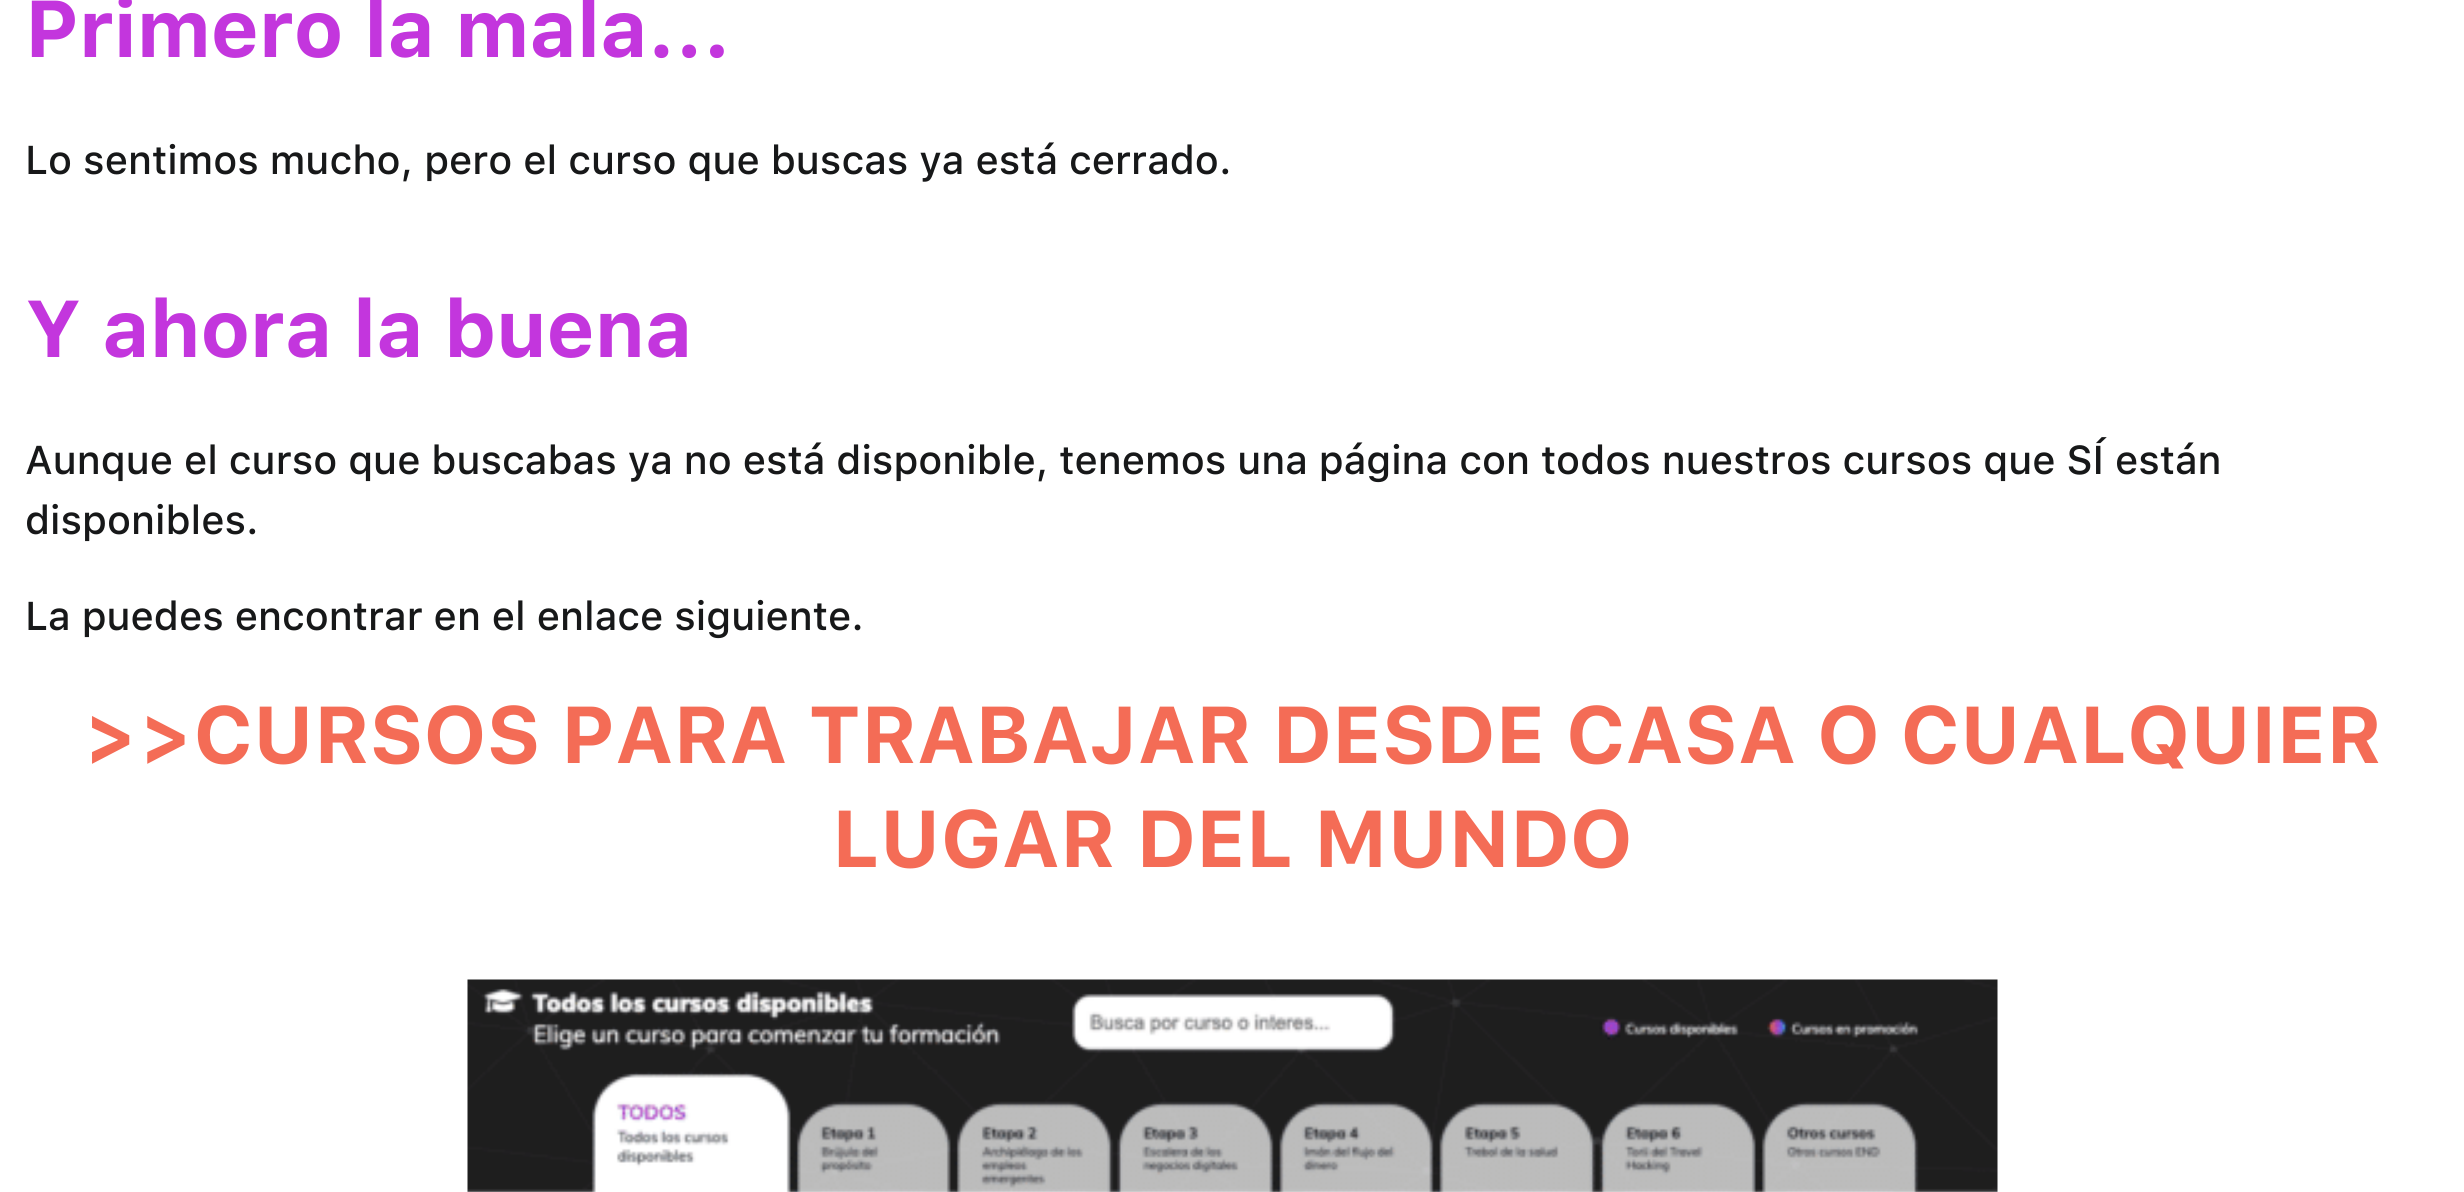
import math
import cairo

surface = cairo.ImageSurface(cairo.FORMAT_RGB24, 2464, 1192)
ctx = cairo.Context(surface)
options = cairo.FontOptions()
options.set_hint_metrics(cairo.HINT_METRICS_OFF)
options.set_hint_style(cairo.HINT_STYLE_NONE)
ctx.set_font_options(options)
ctx.set_miter_limit(4)


def set_color(code):
    ctx.set_source_rgb(*(v / 255 for v in bytes.fromhex(code[-6:])))


def draw_text(x, y, s, family, size, color, bold=False, italic=False):
    ctx.select_font_face(family, cairo.FONT_SLANT_ITALIC if italic else cairo.FONT_SLANT_NORMAL, cairo.FONT_WEIGHT_BOLD if bold else cairo.FONT_WEIGHT_NORMAL)
    ctx.set_font_size(size)
    set_color(color)
    ctx.move_to(x, y)
    ctx.show_text(s)


def draw_image(path, x, y, w, h):
    ctx.save()
    ctx.set_source_surface(cairo.ImageSurface.create_from_png(path), x, y)
    ctx.rectangle(x, y, w, h)
    ctx.fill()
    ctx.restore()


set_color("#ffffff")
ctx.paint()
draw_text(25, 57, "Primero la mala...", "SF Pro Text", 80, "#c336dd", bold=True)
draw_text(25, 174, "Lo sentimos mucho, pero el curso que buscas ya está cerrado.", "SF Pro Text Medium", 40, "#171819")
draw_text(25, 357, "Y ahora la buena", "SF Pro Text", 80, "#c336dd", bold=True)
draw_text(25, 474, "Aunque el curso que buscabas ya no está disponible, tenemos una página con todos nuestros cursos que SÍ están", "SF Pro Text Medium", 40, "#171819")
draw_text(25, 534, "disponibles.", "SF Pro Text Medium", 40, "#171819")
draw_text(25, 630, "La puedes encontrar en el enlace siguiente.", "SF Pro Text Medium", 40, "#171819")
draw_text(83, 763, ">>CURSOS PARA TRABAJAR DESDE CASA O CUALQUIER", "SF Pro Text", 80, "#f46c56", bold=True)
draw_text(832, 867, "LUGAR DEL MUNDO", "SF Pro Text", 80, "#f46c56", bold=True)
draw_image("assets/img1.png", 467, 979, 1531, 213)
surface.write_to_png("output.png")
